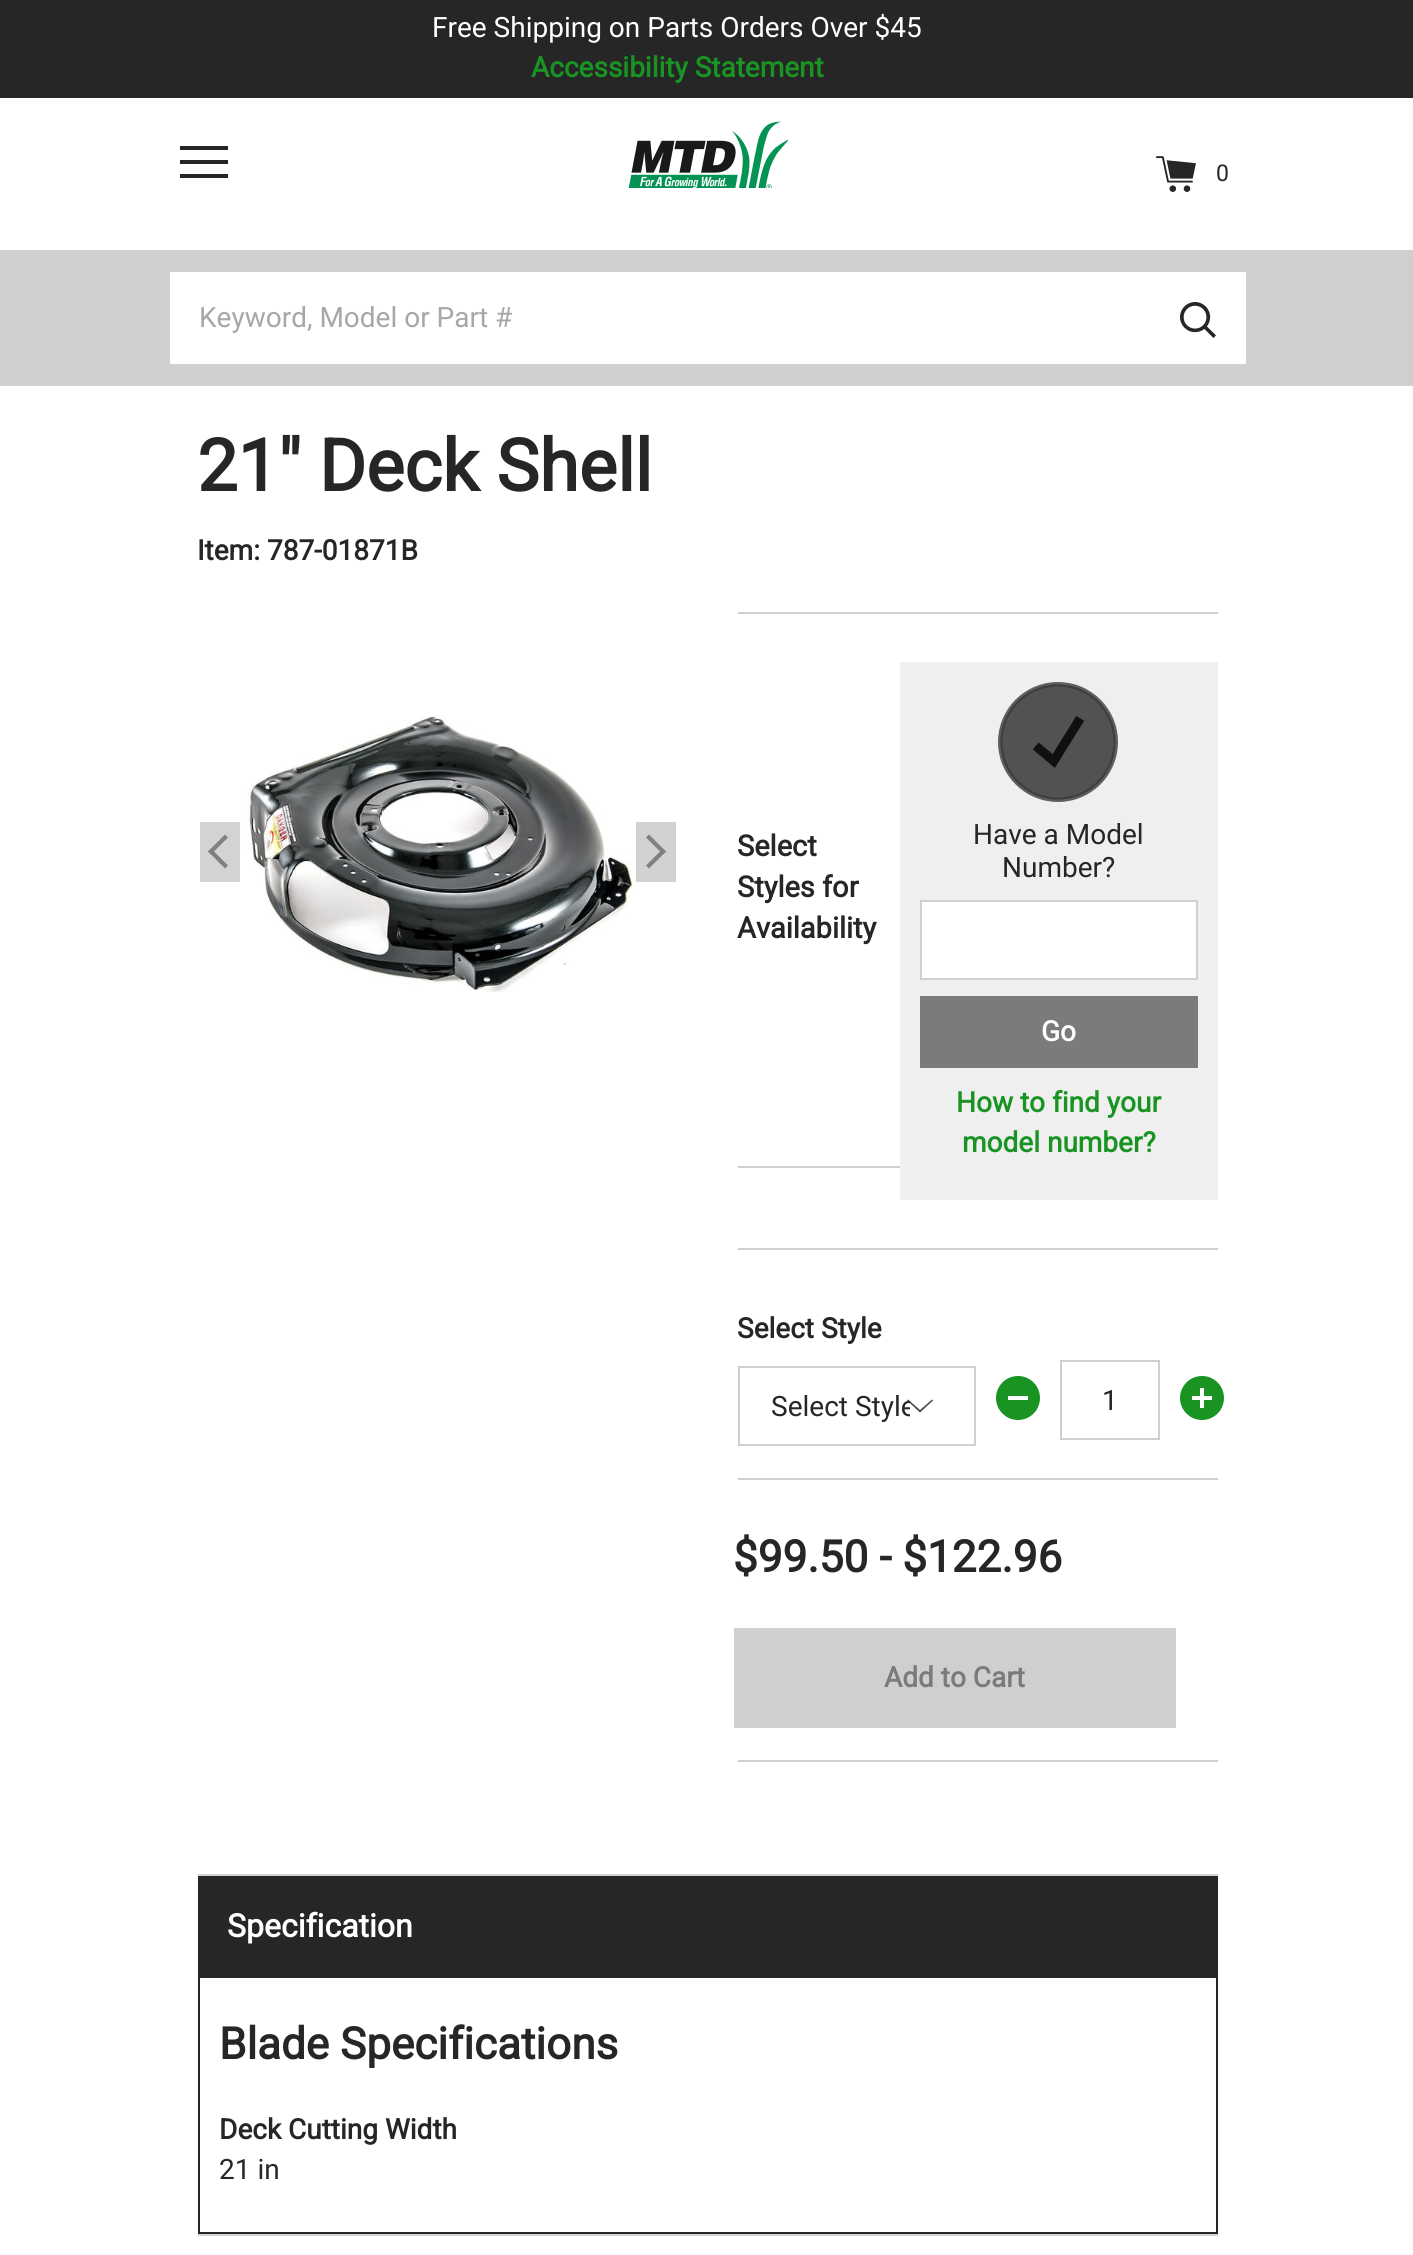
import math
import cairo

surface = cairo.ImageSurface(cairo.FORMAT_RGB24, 1413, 2255)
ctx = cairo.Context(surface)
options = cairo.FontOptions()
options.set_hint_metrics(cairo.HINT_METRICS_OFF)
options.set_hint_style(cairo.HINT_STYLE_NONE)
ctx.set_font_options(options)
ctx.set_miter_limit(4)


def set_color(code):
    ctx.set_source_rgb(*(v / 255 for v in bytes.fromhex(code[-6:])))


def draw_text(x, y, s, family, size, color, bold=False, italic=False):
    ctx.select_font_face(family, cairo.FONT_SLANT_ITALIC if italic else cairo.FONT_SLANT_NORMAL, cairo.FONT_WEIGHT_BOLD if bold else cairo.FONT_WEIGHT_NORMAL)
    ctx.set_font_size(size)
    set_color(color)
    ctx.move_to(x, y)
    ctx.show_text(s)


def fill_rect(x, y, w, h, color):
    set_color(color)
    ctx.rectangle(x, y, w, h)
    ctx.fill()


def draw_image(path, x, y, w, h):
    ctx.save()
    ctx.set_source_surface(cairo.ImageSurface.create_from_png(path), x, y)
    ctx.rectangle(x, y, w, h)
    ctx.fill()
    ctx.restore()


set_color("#ffffff")
ctx.paint()
fill_rect(0, 0, 1413, 98, "#262626")
draw_text(432, 37, "Free Shipping on Parts Orders Over $45", "Roboto", 28, "#ffffff")
draw_text(531, 77, "Accessibility Statement", "Roboto", 28, "#199422", bold=True)
draw_image("assets/img1.png", 628, 121, 160, 67)
set_color("#262626")
ctx.set_fill_rule(cairo.FILL_RULE_EVEN_ODD)
ctx.new_path()
ctx.move_to(228, 174)
ctx.line_to(228, 178)
ctx.line_to(180, 178)
ctx.line_to(180, 174)
ctx.close_path()
ctx.move_to(228, 160)
ctx.line_to(228, 164)
ctx.line_to(180, 164)
ctx.line_to(180, 160)
ctx.close_path()
ctx.move_to(228, 146)
ctx.line_to(228, 150)
ctx.line_to(180, 150)
ctx.line_to(180, 146)
ctx.close_path()
ctx.fill()
draw_image("assets/img2.png", 1156, 156, 40, 36)
draw_text(1216, 181, "0", "Roboto", 23, "#262626")
fill_rect(0, 250, 1413, 136, "#d0cfcf")
fill_rect(170, 272, 1076, 92, "#ffffff")
draw_text(199, 327, "Keyword, Model or Part #", "Roboto", 28, "#a8a7a7")
draw_image("assets/img3.png", 1180, 302, 36, 36)
draw_text(197, 491, "21\" Deck Shell", "Roboto", 72, "#262626", bold=True)
draw_text(197, 560, "Item: 787-01871B", "Roboto", 28, "#262626", bold=True)
fill_rect(200, 822, 40, 60, "#d4d3d3")
set_color("#808080")
ctx.set_fill_rule(cairo.FILL_RULE_WINDING)
ctx.new_path()
ctx.move_to(225, 868.5)
ctx.line_to(208, 851.5)
ctx.line_to(211, 848.5)
ctx.line_to(228, 865.5)
ctx.close_path()
ctx.fill()
ctx.new_path()
ctx.move_to(211, 854.5)
ctx.line_to(208, 851.5)
ctx.line_to(225, 834.5)
ctx.line_to(228, 837.5)
ctx.close_path()
ctx.fill()
draw_image("assets/img4.png", 247, 716, 390, 276)
ctx.set_source_rgba(0.659, 0.655, 0.655, 0.5)
ctx.rectangle(636, 822, 40, 60)
ctx.fill()
set_color("#808080")
ctx.new_path()
ctx.move_to(649, 834.5)
ctx.line_to(666, 851.5)
ctx.line_to(663, 854.5)
ctx.line_to(646, 837.5)
ctx.close_path()
ctx.fill()
ctx.new_path()
ctx.move_to(663, 848.5)
ctx.line_to(666, 851.5)
ctx.line_to(649, 868.5)
ctx.line_to(646, 865.5)
ctx.close_path()
ctx.fill()
fill_rect(738, 612, 480, 2, "#d0cfcf")
fill_rect(738, 1248, 480, 2, "#d0cfcf")
fill_rect(738, 1166, 162, 2, "#d0cfcf")
draw_text(737, 856, "Select", "Roboto", 29, "#262626", bold=True)
draw_text(737, 897, "Styles for", "Roboto", 29, "#262626", bold=True)
draw_text(737, 938, "Availability", "Roboto", 29, "#262626", bold=True)
fill_rect(900, 662, 318, 538, "#efefef")
draw_image("assets/img5.png", 998, 682, 120, 120)
draw_text(973, 844, "Have a Model", "Roboto", 28, "#262626")
draw_text(1002, 877, "Number?", "Roboto", 28, "#262626")
set_color("#ffffff")
ctx.rectangle(921, 901, 276, 78)
ctx.fill_preserve()
set_color("#d0cfcf")
ctx.stroke()
fill_rect(920, 996, 278, 72, "#7c7a7a")
draw_text(1041, 1041, "Go", "Roboto", 28, "#ffffff", bold=True)
draw_text(956, 1112, "How to find your", "Roboto", 28, "#199422", bold=True)
draw_text(962, 1152, "model number?", "Roboto", 28, "#199422", bold=True)
draw_text(737, 1338, "Select Style", "Roboto", 28, "#262626", bold=True)
set_color("#4a4a4a")
ctx.set_fill_rule(cairo.FILL_RULE_EVEN_ODD)
ctx.new_path()
ctx.move_to(908, 1399.5)
ctx.line_to(907, 1400.5)
ctx.line_to(920, 1412.5)
ctx.line_to(933, 1400.5)
ctx.line_to(932, 1399.5)
ctx.line_to(920, 1410)
ctx.close_path()
ctx.fill()
ctx.rectangle(739, 1367, 236, 78)
set_color("#d0cfcf")
ctx.stroke()
ctx.save()
ctx.set_fill_rule(cairo.FILL_RULE_WINDING)
ctx.rectangle(772, 1388, 138, 36)
ctx.clip()
draw_text(771, 1416, "Select Style", "Roboto", 28, "#262626")
ctx.restore()
set_color("#199422")
ctx.new_path()
ctx.arc(1018, 1398, 22, 0, 2 * math.pi)
ctx.fill()
fill_rect(1008, 1396, 20, 4, "#ffffff")
ctx.rectangle(1061, 1361, 98, 78)
set_color("#d0cfcf")
ctx.stroke()
draw_text(1102, 1410, "1", "Roboto", 28, "#262626")
set_color("#199422")
ctx.new_path()
ctx.arc(1202, 1398, 22, 0, 2 * math.pi)
ctx.fill()
set_color("#ffffff")
ctx.new_path()
ctx.move_to(1204, 1396)
ctx.line_to(1212, 1396)
ctx.line_to(1212, 1400)
ctx.line_to(1204, 1400)
ctx.line_to(1204, 1408)
ctx.line_to(1200, 1408)
ctx.line_to(1200, 1400)
ctx.line_to(1192, 1400)
ctx.line_to(1192, 1396)
ctx.line_to(1200, 1396)
ctx.line_to(1200, 1388)
ctx.line_to(1204, 1388)
ctx.close_path()
ctx.fill()
fill_rect(738, 1478, 480, 2, "#d0cfcf")
draw_text(733, 1572, "$99.50 - $122.96", "Roboto", 44, "#262626", bold=True)
fill_rect(734, 1628, 442, 100, "#d0cfcf")
draw_text(884, 1687, "Add to Cart", "Roboto", 28, "#7c7a7a", bold=True)
fill_rect(738, 1760, 480, 2, "#d0cfcf")
fill_rect(198, 1874, 1020, 2, "#d1d3d4")
fill_rect(198, 2234, 1020, 2, "#d1d3d4")
fill_rect(198, 1876, 1020, 100, "#262626")
draw_text(227, 1937, "Specification", "Roboto", 32, "#ffffff", bold=True)
ctx.rectangle(199, 1977, 1018, 256)
set_color("#262626")
ctx.stroke()
draw_text(219, 2059, "Blade Specifications", "Roboto", 44, "#262626", bold=True)
draw_text(219, 2139, "Deck Cutting Width", "Roboto", 28, "#262626", bold=True)
draw_text(219, 2179, "21 in", "Roboto", 28, "#262626")
surface.write_to_png("output.png")
